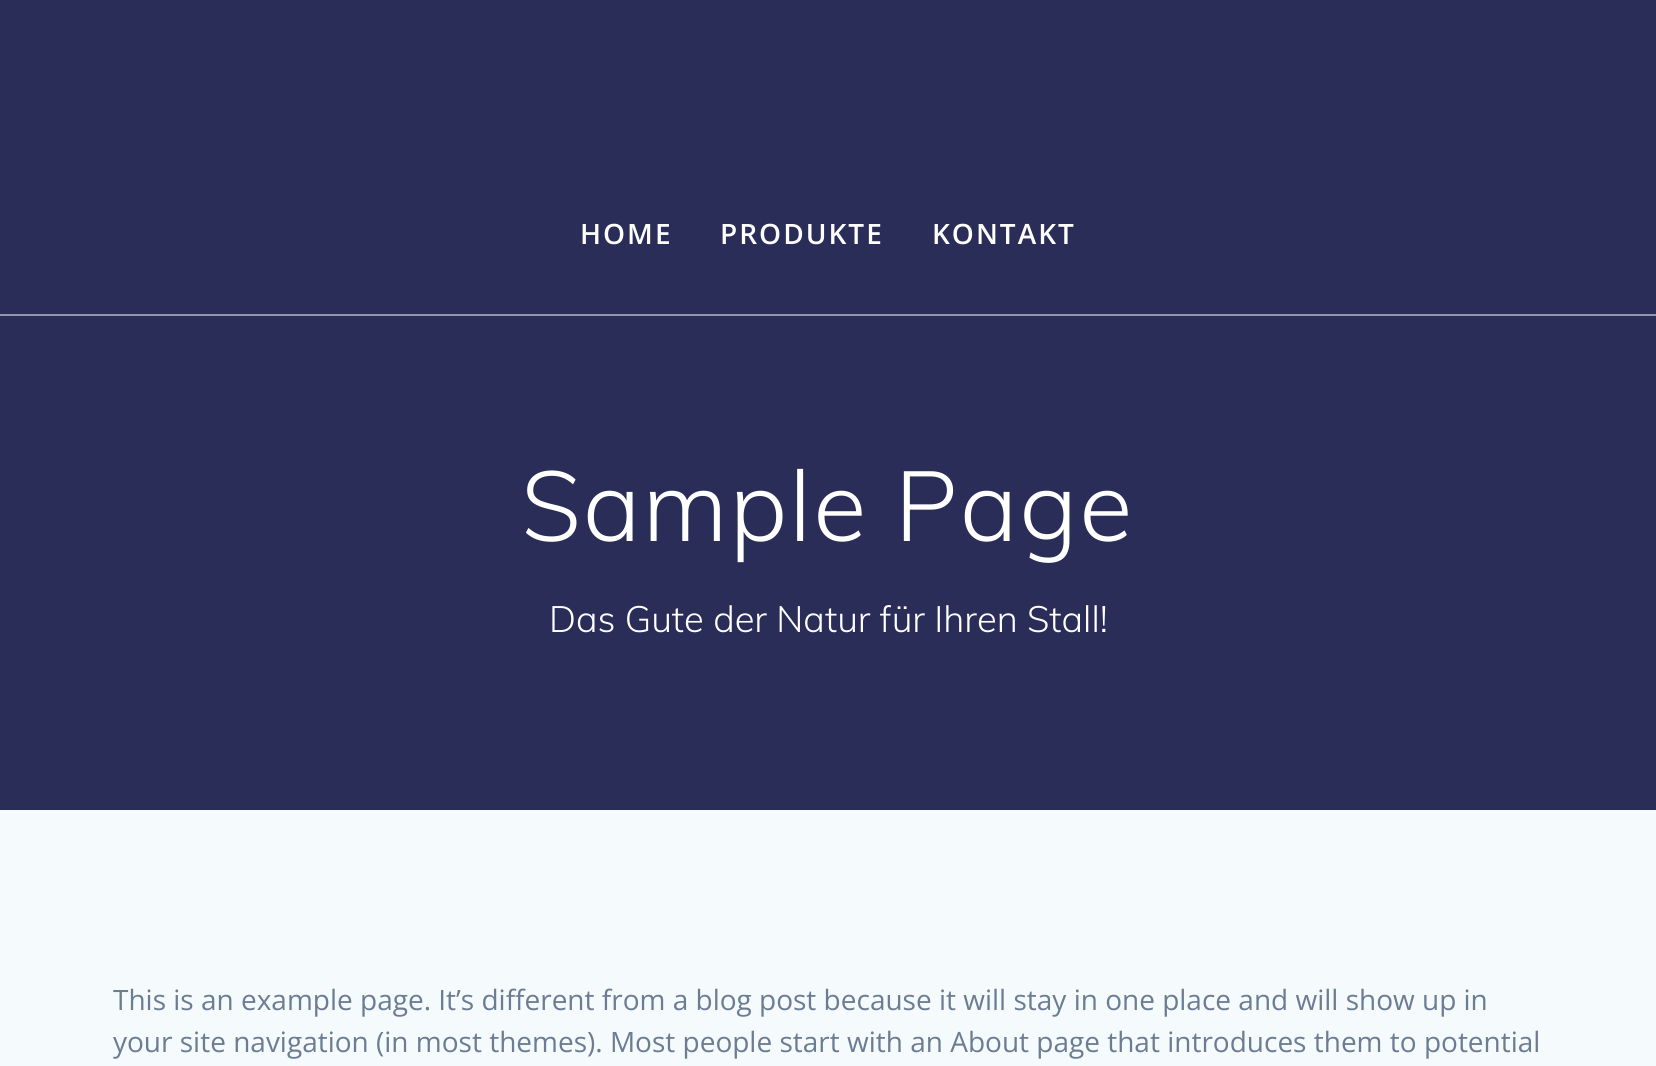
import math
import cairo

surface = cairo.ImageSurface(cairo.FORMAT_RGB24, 1656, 1066)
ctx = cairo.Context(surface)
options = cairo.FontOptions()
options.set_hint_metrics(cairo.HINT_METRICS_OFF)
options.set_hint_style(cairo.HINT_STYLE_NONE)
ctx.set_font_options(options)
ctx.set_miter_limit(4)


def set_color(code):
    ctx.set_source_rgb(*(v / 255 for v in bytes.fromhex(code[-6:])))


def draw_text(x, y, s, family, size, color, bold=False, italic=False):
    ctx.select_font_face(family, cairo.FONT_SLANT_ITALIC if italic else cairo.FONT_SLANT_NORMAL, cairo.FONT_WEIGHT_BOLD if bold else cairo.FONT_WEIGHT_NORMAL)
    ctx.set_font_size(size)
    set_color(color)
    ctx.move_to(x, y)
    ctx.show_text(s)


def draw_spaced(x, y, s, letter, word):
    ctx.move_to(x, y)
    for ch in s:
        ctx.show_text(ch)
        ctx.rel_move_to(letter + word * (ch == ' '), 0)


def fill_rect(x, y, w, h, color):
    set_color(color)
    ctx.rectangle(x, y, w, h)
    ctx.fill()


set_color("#2a2d58")
ctx.paint()
fill_rect(0, 314, 1656, 2, "#9596ac")
ctx.select_font_face("Open Sans SemiBold")
ctx.set_font_size(28)
set_color("#ffffff")
draw_spaced(580, 244, "HOME", 2, 0)
draw_spaced(720, 244, "PRODUKTE", 2, 0)
draw_spaced(932, 244, "KONTAKT", 2, 0)
ctx.select_font_face("Muli Light")
ctx.set_font_size(98)
draw_spaced(521, 541, "Sample Page", 1.75, 0)
draw_text(549, 632, "Das Gute der Natur für Ihren Stall!", "Muli Light", 36.4, "#ffffff")
fill_rect(0, 810, 1656, 256, "#f5fafd")
draw_text(113, 1010, "This is an example page. It’s different from a blog post because it will stay in one place and will show up in", "Open Sans", 28, "#6b7c93")
draw_text(113, 1052, "your site navigation (in most themes). Most people start with an About page that introduces them to potential", "Open Sans", 28, "#6b7c93")
surface.write_to_png("output.png")
